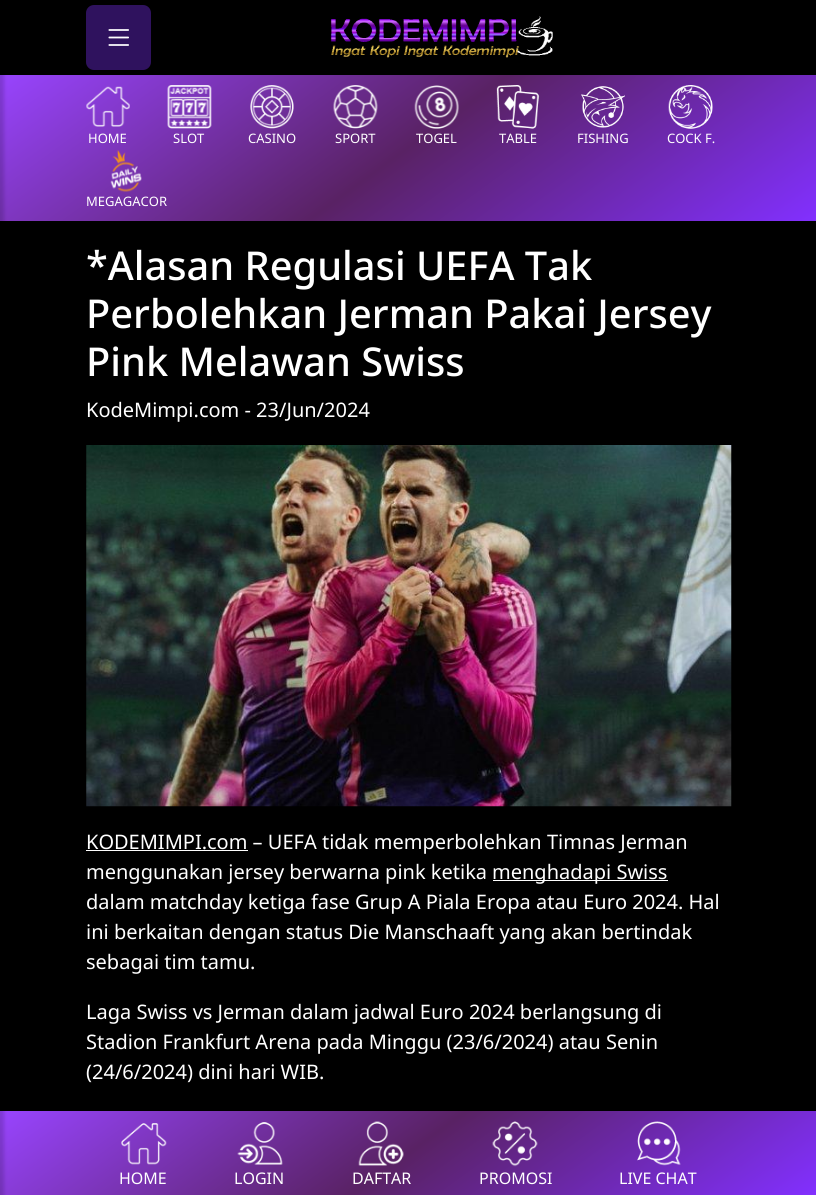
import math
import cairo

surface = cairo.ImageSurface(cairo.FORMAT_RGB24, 816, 1195)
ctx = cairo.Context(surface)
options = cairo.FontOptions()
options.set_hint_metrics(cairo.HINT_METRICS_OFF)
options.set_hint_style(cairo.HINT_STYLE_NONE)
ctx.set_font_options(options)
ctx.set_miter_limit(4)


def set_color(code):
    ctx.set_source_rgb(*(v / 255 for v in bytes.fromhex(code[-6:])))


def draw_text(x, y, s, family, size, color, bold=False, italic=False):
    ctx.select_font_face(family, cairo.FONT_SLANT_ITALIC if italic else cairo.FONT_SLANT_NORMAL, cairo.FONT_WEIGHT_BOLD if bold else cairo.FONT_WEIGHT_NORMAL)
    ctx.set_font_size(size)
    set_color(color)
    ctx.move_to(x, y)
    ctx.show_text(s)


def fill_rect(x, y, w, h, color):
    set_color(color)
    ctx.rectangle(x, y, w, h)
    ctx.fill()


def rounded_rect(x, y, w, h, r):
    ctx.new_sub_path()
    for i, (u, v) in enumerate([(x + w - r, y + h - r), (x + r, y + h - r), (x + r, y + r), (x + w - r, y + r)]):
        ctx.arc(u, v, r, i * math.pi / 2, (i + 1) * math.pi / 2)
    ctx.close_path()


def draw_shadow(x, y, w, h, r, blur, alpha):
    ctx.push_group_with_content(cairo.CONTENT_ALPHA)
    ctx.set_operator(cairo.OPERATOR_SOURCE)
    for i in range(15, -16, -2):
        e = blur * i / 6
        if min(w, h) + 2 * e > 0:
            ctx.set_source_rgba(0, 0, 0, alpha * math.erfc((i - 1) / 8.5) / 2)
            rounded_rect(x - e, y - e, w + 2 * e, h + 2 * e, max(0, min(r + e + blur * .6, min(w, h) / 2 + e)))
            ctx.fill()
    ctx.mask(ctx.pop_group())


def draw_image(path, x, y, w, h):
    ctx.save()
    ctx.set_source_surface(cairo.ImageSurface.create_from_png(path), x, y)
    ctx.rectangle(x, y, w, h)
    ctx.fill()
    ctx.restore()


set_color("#000000")
ctx.paint()
gradient = cairo.LinearGradient(232, -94, 584, 390)
gradient.add_color_stop_rgba(0, 0.596, 0.267, 0.996, 1)
gradient.add_color_stop_rgba(0.5, 0.349, 0.133, 0.392, 1)
gradient.add_color_stop_rgba(1, 0.51, 0.188, 1, 1)
ctx.set_source(gradient)
ctx.rectangle(0, 75, 816, 146)
ctx.fill()
gradient = cairo.LinearGradient(247, 932, 569, 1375)
gradient.add_color_stop_rgba(0, 0.596, 0.267, 0.996, 1)
gradient.add_color_stop_rgba(0.5, 0.349, 0.133, 0.392, 1)
gradient.add_color_stop_rgba(1, 0.51, 0.188, 1, 1)
ctx.set_source(gradient)
ctx.rectangle(0, 1111, 816, 84)
ctx.fill()
set_color("#000000")
draw_shadow(-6, 4, 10, 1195, 0, 2, 0.17)
set_color("#2f125e")
rounded_rect(87.5, 6.5, 62, 62, 6.5)
ctx.fill_preserve()
ctx.set_line_width(3)
ctx.stroke()
draw_image("assets/img1.png", 108, 29, 21, 17)
draw_image("assets/img2.png", 330, 16, 223, 42)
draw_image("assets/img3.png", 86, 86, 44, 41)
draw_text(88, 143, "HOME", "Noto Sans", 13, "#ffffff")
draw_image("assets/img4.png", 167, 85, 45, 44)
draw_text(173, 143, "SLOT", "Noto Sans", 13, "#ffffff")
draw_image("assets/img5.png", 250, 85, 44, 44)
draw_text(248, 143, "CASINO", "Noto Sans", 13, "#ffffff")
draw_image("assets/img6.png", 333, 85, 45, 44)
draw_text(335, 143, "SPORT", "Noto Sans", 13, "#ffffff")
draw_image("assets/img7.png", 414, 85, 45, 44)
draw_text(416, 143, "TOGEL", "Noto Sans", 13, "#ffffff")
draw_image("assets/img8.png", 496, 85, 44, 44)
draw_text(499, 143, "TABLE", "Noto Sans", 13, "#ffffff")
draw_image("assets/img9.png", 581, 86, 44, 42)
draw_text(577, 143, "FISHING", "Noto Sans", 13, "#ffffff")
draw_image("assets/img10.png", 668, 85, 45, 44)
draw_text(667, 143, "COCK F.", "Noto Sans", 13, "#ffffff")
draw_image("assets/img11.png", 110, 150, 32, 42)
draw_text(86, 206, "MEGAGACOR", "Noto Sans", 13, "#ffffff")
draw_text(86, 280, "*Alasan Regulasi UEFA Tak", "Noto Sans Medium", 39.75, "#ffffff")
draw_text(86, 328, "Perbolehkan Jerman Pakai Jersey", "Noto Sans Medium", 39.75, "#ffffff")
draw_text(86, 376, "Pink Melawan Swiss", "Noto Sans Medium", 39.75, "#ffffff")
draw_text(86, 417, "KodeMimpi.com - 23/Jun/2024", "Noto Sans", 20, "#ffffff")
draw_image("assets/img12.png", 86, 445, 646, 362)
fill_rect(86, 850, 162, 1, "#ffffff")
draw_text(86, 849, "KODEMIMPI.com – UEFA tidak memperbolehkan Timnas Jerman", "Noto Sans", 20, "#ffffff")
draw_text(86, 879, "menggunakan jersey berwarna pink ketika", "Noto Sans", 20, "#ffffff")
fill_rect(493, 880, 175, 1, "#ffffff")
draw_text(492, 879, "menghadapi Swiss", "Noto Sans", 20, "#ffffff")
draw_text(86, 909, "dalam matchday ketiga fase Grup A Piala Eropa atau Euro 2024. Hal", "Noto Sans", 20, "#ffffff")
draw_text(86, 939, "ini berkaitan dengan status Die Manschaaft yang akan bertindak", "Noto Sans", 20, "#ffffff")
draw_text(86, 969, "sebagai tim tamu.", "Noto Sans", 20, "#ffffff")
draw_text(86, 1019, "Laga Swiss vs Jerman dalam jadwal Euro 2024 berlangsung di", "Noto Sans", 20, "#ffffff")
draw_text(86, 1049, "Stadion Frankfurt Arena pada Minggu (23/6/2024) atau Senin", "Noto Sans", 20, "#ffffff")
draw_text(86, 1079, "(24/6/2024) dini hari WIB.", "Noto Sans", 20, "#ffffff")
draw_image("assets/img13.png", 121, 1123, 46, 42)
draw_text(119, 1184, "HOME", "Noto Sans", 16, "#ffffff")
draw_image("assets/img14.png", 237, 1122, 46, 43)
draw_text(234, 1184, "LOGIN", "Noto Sans", 16, "#ffffff")
draw_image("assets/img15.png", 358, 1121, 46, 45)
draw_text(352, 1184, "DAFTAR", "Noto Sans", 16, "#ffffff")
draw_image("assets/img16.png", 492, 1121, 46, 46)
draw_text(479, 1184, "PROMOSI", "Noto Sans", 16, "#ffffff")
draw_image("assets/img17.png", 637, 1121, 44, 45)
draw_text(619, 1184, "LIVE CHAT", "Noto Sans", 16, "#ffffff")
surface.write_to_png("output.png")
